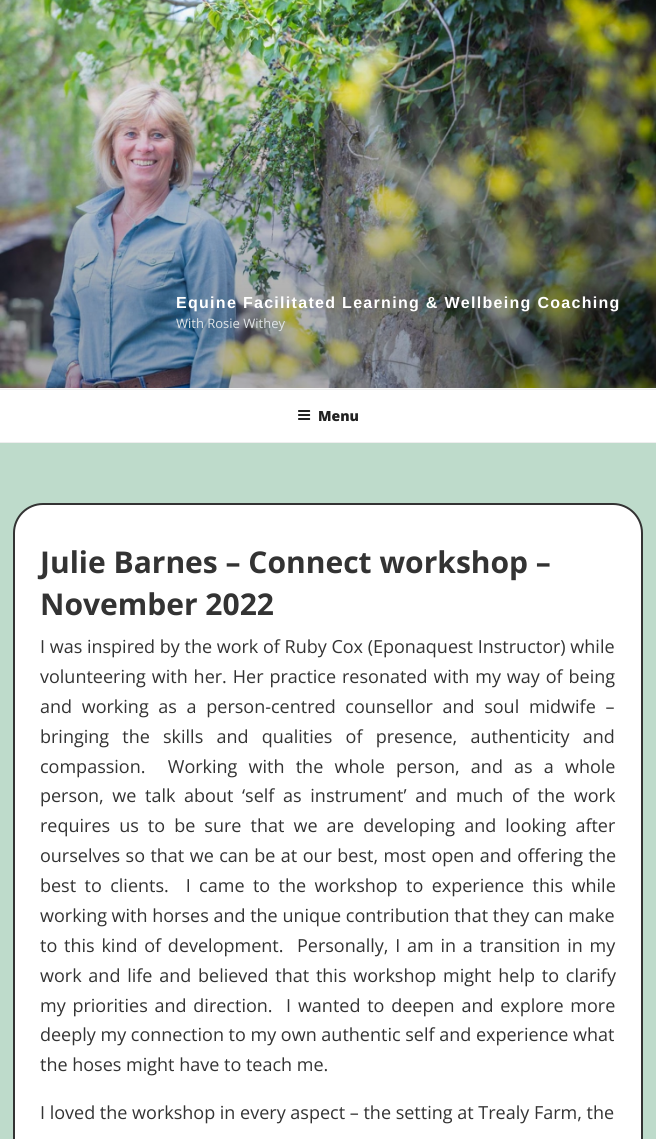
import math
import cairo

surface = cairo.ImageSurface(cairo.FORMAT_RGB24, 656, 1139)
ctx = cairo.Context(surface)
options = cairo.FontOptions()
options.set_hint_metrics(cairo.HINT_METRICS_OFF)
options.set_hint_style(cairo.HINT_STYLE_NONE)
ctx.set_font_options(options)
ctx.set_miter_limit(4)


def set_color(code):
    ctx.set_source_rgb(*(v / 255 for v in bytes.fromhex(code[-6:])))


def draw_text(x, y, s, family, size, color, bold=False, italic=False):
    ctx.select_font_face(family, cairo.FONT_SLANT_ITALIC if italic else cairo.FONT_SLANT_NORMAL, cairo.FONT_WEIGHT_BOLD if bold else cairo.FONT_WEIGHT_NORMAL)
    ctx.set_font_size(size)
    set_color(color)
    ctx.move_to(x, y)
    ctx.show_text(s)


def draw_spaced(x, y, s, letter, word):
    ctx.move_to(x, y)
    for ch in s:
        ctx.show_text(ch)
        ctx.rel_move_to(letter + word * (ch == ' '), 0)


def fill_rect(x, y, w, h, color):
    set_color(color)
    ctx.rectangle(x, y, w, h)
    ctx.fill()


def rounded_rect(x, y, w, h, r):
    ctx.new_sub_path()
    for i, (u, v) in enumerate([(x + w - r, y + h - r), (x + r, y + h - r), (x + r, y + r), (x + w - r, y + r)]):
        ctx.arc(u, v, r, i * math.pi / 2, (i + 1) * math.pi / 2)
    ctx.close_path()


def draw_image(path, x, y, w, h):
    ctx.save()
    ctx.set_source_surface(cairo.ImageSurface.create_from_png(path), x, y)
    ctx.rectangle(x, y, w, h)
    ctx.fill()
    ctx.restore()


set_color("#fafafa")
ctx.paint()
draw_image("assets/img1.png", 0, 0, 656, 388)
ctx.select_font_face("Liberation Sans", cairo.FONT_SLANT_NORMAL, cairo.FONT_WEIGHT_BOLD)
ctx.set_font_size(16)
set_color("#ffffff")
draw_spaced(176, 308, "Equine Facilitated Learning & Wellbeing Coaching", 1.3, 0)
draw_text(176, 328, "With Rosie Withey", "Open Sans", 13, "#dfe4e7")
fill_rect(0, 390, 656, 52, "#ffffff")
fill_rect(0, 389, 656, 1, "#eeeeee")
fill_rect(0, 442, 656, 1, "#eeeeee")
draw_image("assets/img2.png", 298, 410, 13, 10)
draw_text(318, 421, "Menu", "Open Sans ExtraBold", 14, "#222222")
fill_rect(0, 443, 656, 696, "#bedbcb")
set_color("#ffffff")
rounded_rect(14, 504, 628, 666, 29)
ctx.fill_preserve()
set_color("#333333")
ctx.stroke()
draw_text(40, 573, "Julie Barnes – Connect workshop –", "Open Sans", 30, "#333333", bold=True)
draw_text(40, 615, "November 2022", "Open Sans", 30, "#333333", bold=True)
draw_text(40, 653, "I was inspired by the work of Ruby Cox (Eponaquest Instructor) while", "Open Sans", 18, "#333333")
draw_spaced(40, 683, "volunteering with her. Her practice resonated with my way of being", 0, 1.25)
draw_spaced(40, 713, "and working as a person-centred counsellor and soul midwife –", 0, 5)
draw_spaced(40, 743, "bringing the skills and qualities of presence, authenticity and", 0, 8.5)
draw_spaced(40, 773, "compassion.  Working with the whole person, and as a whole", 0, 6.5)
draw_spaced(40, 802, "person, we talk about ‘self as instrument’ and much of the work", 0, 4)
draw_spaced(40, 832, "requires us to be sure that we are developing and looking after", 0, 4.4)
draw_spaced(40, 862, "ourselves so that we can be at our best, most open and offering the", 0, 0.75)
draw_spaced(40, 892, "best to clients.  I came to the workshop to experience this while", 0, 3.75)
draw_text(40, 922, "working with horses and the unique contribution that they can make", "Open Sans", 18, "#333333")
draw_spaced(40, 952, "to this kind of development.  Personally, I am in a transition in my", 0, 2.1)
draw_spaced(40, 982, "work and life and believed that this workshop might help to clarify", 0, 2.1)
draw_spaced(40, 1012, "my priorities and direction.  I wanted to deepen and explore more", 0, 2.1)
draw_text(40, 1041, "deeply my connection to my own authentic self and experience what", "Open Sans", 18, "#333333")
draw_text(40, 1071, "the hoses might have to teach me.", "Open Sans", 18, "#333333")
draw_text(40, 1119, "I loved the workshop in every aspect – the setting at Trealy Farm, the", "Open Sans", 18, "#333333")
surface.write_to_png("output.png")
